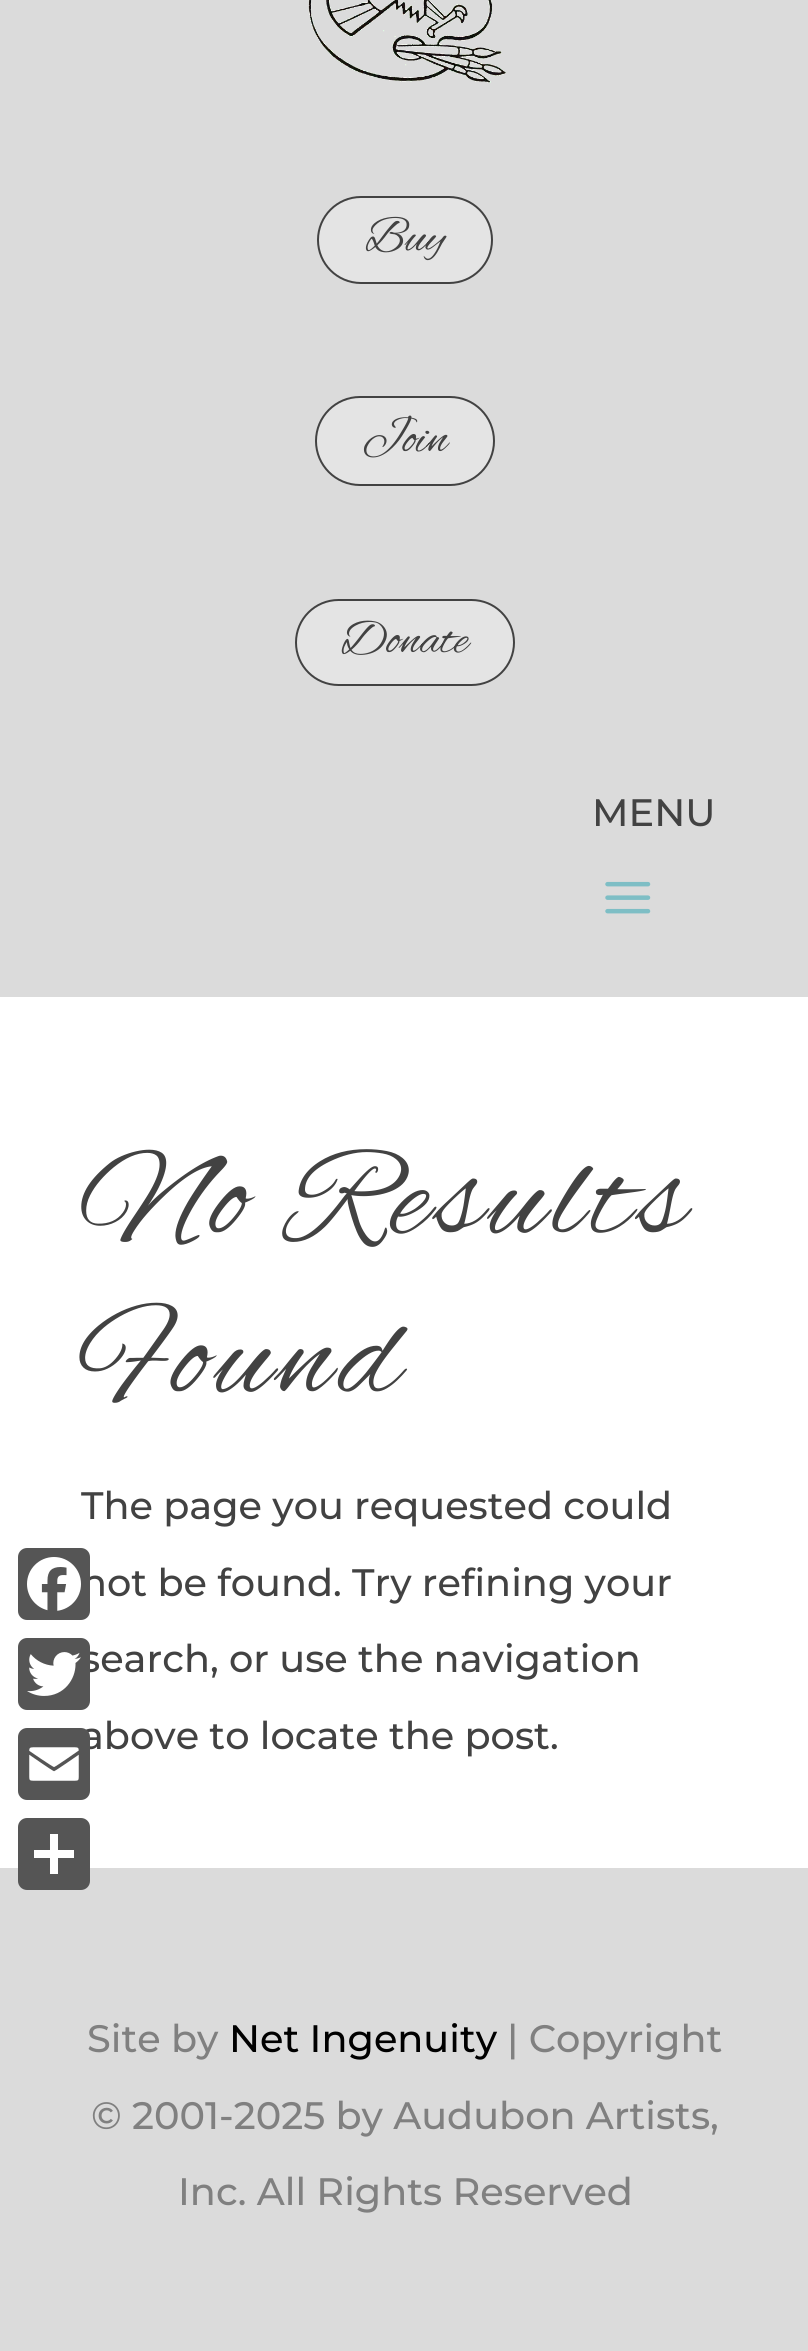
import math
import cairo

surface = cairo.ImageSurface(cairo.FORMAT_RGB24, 808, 2351)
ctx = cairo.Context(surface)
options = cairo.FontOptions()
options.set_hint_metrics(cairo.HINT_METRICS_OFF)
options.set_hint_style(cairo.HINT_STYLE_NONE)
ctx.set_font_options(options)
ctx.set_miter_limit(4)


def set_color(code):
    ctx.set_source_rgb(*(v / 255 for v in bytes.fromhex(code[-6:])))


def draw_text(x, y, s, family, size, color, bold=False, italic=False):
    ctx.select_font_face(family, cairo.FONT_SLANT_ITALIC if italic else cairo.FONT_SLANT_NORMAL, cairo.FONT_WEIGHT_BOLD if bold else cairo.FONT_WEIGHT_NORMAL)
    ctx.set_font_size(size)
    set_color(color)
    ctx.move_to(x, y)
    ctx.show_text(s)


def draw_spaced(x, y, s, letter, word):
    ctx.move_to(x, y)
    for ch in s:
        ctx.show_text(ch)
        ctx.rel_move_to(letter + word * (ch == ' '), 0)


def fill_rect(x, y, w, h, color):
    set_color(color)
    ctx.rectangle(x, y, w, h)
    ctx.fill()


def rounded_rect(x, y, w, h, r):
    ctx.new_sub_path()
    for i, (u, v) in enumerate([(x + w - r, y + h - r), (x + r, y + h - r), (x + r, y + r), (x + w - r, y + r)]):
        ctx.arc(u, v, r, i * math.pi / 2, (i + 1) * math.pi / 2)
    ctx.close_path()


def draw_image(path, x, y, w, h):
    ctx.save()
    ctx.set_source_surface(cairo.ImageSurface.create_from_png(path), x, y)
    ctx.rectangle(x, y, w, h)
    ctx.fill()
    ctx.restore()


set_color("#ffffff")
ctx.paint()
draw_text(81, 1596, "not be found. Try refining your", "Montserrat Thin", 38.25, "#424242")
set_color("#555555")
rounded_rect(18, 1548, 72, 72, 9)
ctx.fill()
draw_image("assets/img1.png", 27, 1557, 54, 54)
draw_text(81, 1672, "search, or use the navigation", "Montserrat Thin", 38.25, "#424242")
set_color("#555555")
rounded_rect(18, 1638, 72, 72, 9)
ctx.fill()
draw_image("assets/img2.png", 27, 1652, 54, 44)
draw_text(81, 1749, "above to locate the post.", "Montserrat Thin", 38.25, "#424242")
set_color("#555555")
rounded_rect(18, 1728, 72, 72, 9)
ctx.fill()
draw_image("assets/img3.png", 29, 1747, 50, 34)
fill_rect(0, 1868, 808, 483, "#dbdbdb")
set_color("#555555")
rounded_rect(18, 1818, 72, 72, 9)
ctx.fill()
fill_rect(50, 1834, 8, 40, "#ffffff")
fill_rect(34, 1850, 40, 8, "#ffffff")
fill_rect(0, 0, 808, 997, "#dbdbdb")
draw_image("assets/img4.png", 308, 0, 198, 83)
set_color("#e4e4e4")
rounded_rect(318, 197, 174, 86, 43)
ctx.fill_preserve()
set_color("#424242")
ctx.stroke()
draw_text(365, 250, "Buy", "Alex Brush", 49.5, "#424242")
set_color("#e4e4e4")
rounded_rect(316, 397, 178, 88, 44)
ctx.fill_preserve()
set_color("#424242")
ctx.stroke()
draw_text(362, 451, "Join", "Alex Brush", 49.5, "#424242")
set_color("#e4e4e4")
rounded_rect(296, 600, 218, 85, 42.5)
ctx.fill_preserve()
set_color("#424242")
ctx.stroke()
draw_text(341, 652, "Donate", "Alex Brush", 49.5, "#424242")
draw_text(592, 826, "MENU", "Montserrat Thin", 38.25, "#424242")
draw_image("assets/img5.png", 605, 881, 46, 33)
ctx.select_font_face("Alex Brush")
ctx.set_font_size(132.75)
draw_spaced(81, 1232, "No Results", 6.75, 0)
draw_spaced(81, 1391, "Found", 6.75, 0)
draw_text(81, 1519, "The page you requested could", "Montserrat Thin", 38.25, "#424242")
draw_text(87, 2052, "Site by", "Montserrat Thin", 38.25, "#808080")
draw_text(229, 2052, "Net Ingenuity", "Montserrat Thin", 38.25, "#000000")
draw_text(507, 2052, "| Copyright", "Montserrat Thin", 38.25, "#808080")
draw_text(91, 2129, "© 2001-2025 by Audubon Artists,", "Montserrat Thin", 38.25, "#808080")
draw_text(178, 2205, "Inc. All Rights Reserved", "Montserrat Thin", 38.25, "#808080")
surface.write_to_png("output.png")
